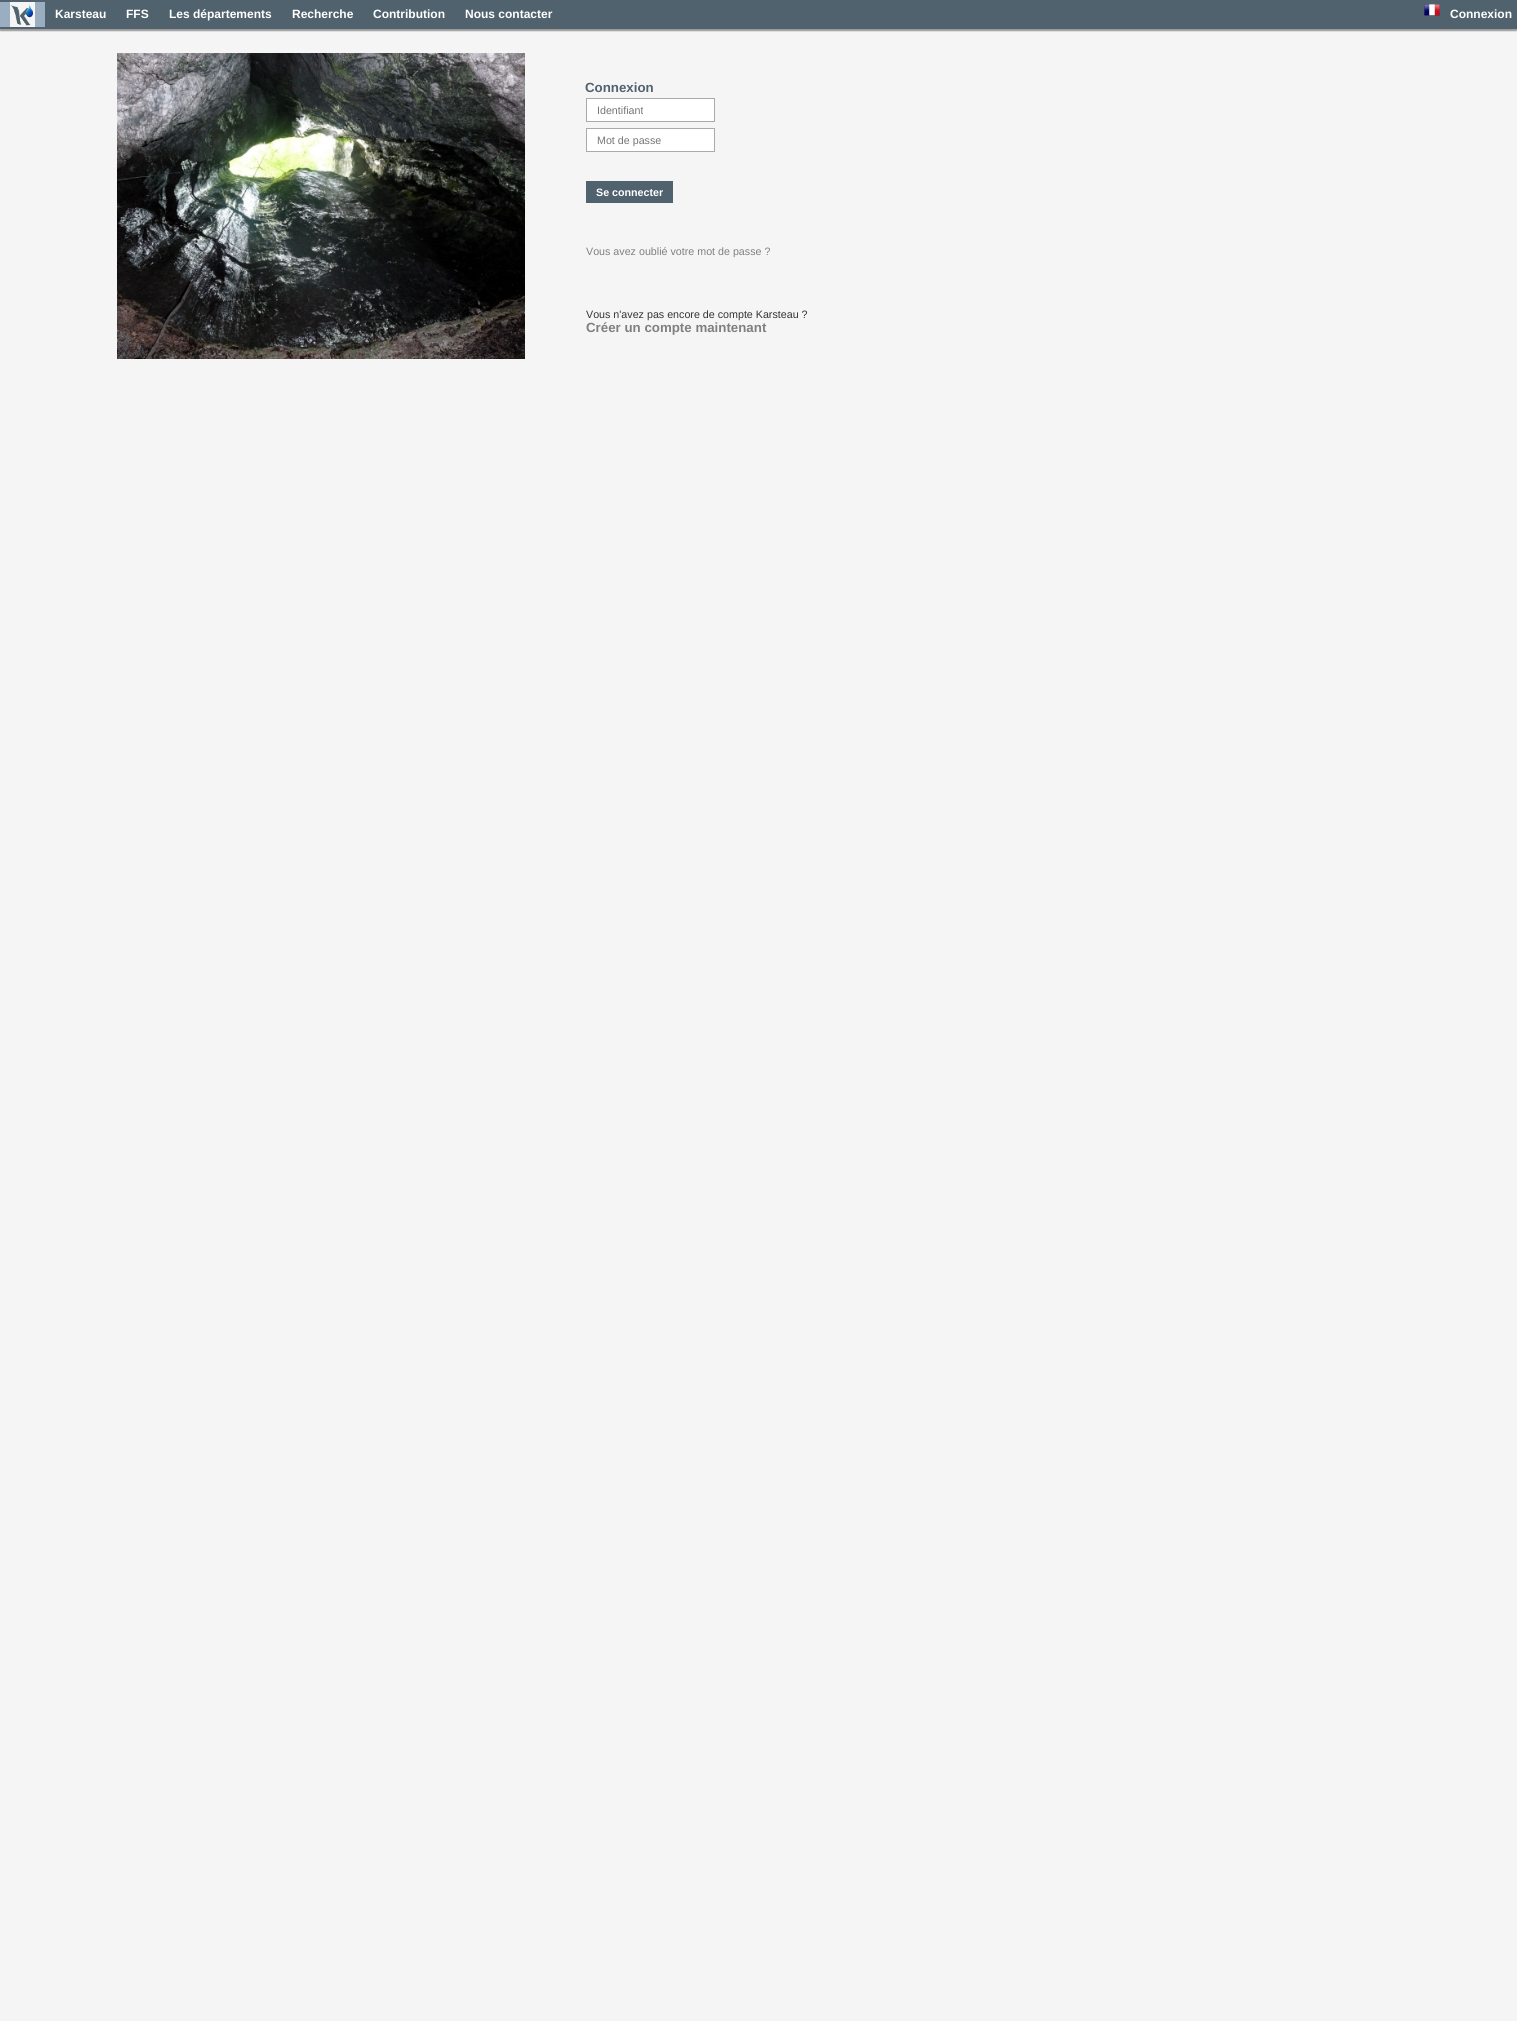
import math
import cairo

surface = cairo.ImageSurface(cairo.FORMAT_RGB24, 1517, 2021)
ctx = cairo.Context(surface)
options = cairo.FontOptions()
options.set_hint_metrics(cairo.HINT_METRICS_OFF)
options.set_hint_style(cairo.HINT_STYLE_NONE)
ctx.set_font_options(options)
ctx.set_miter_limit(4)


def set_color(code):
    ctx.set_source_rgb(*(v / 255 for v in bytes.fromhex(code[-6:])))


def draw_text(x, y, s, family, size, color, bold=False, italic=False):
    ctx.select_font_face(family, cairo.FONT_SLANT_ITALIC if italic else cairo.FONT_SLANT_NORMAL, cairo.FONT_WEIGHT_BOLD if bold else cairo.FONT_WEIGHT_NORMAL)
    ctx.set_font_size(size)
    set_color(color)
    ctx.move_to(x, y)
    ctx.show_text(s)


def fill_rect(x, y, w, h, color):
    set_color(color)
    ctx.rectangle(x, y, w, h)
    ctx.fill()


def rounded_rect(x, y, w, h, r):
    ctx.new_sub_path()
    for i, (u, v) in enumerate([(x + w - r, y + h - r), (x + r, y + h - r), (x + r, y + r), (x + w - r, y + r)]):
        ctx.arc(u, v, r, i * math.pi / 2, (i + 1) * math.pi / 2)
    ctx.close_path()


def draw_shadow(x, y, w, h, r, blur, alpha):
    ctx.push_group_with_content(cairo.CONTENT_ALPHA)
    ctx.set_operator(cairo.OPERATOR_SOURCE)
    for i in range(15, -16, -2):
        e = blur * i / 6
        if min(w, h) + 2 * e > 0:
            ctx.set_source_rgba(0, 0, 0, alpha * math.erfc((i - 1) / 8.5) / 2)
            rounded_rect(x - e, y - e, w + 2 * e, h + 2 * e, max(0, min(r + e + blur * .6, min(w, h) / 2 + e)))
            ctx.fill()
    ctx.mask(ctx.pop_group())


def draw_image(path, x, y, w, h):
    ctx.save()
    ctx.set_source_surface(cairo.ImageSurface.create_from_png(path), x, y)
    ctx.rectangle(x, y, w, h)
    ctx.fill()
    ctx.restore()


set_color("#f5f5f5")
ctx.paint()
set_color("#9c9c9c")
draw_shadow(0, 2, 1517, 29, 0, 0.5, 1)
fill_rect(0, 0, 1517, 29, "#51626f")
fill_rect(0, 2, 45, 25, "#9badc1")
fill_rect(10, 2, 25, 25, "#f5f5f5")
draw_image("assets/img1.png", 10, 4, 23, 22)
draw_text(55, 18, "Karsteau", "Liberation Sans", 12, "#ffffff", bold=True)
draw_text(126, 18, "FFS", "Liberation Sans", 12, "#ffffff", bold=True)
draw_text(169, 18, "Les départements", "Liberation Sans", 12, "#ffffff", bold=True)
draw_text(292, 18, "Recherche", "Liberation Sans", 12, "#ffffff", bold=True)
draw_text(373, 18, "Contribution", "Liberation Sans", 12, "#ffffff", bold=True)
draw_text(465, 18, "Nous contacter", "Liberation Sans", 12, "#ffffff", bold=True)
draw_image("assets/img2.png", 1424, 4, 16, 12)
draw_text(1450, 18, "Connexion", "Liberation Sans", 12, "#ffffff", bold=True)
draw_image("assets/img3.png", 117, 53, 408, 306)
draw_text(585, 92, "Connexion", "Liberation Sans", 13.3, "#51626f", bold=True)
set_color("#ffffff")
ctx.rectangle(586.5, 98.5, 128, 23)
ctx.fill_preserve()
set_color("#aaaaaa")
ctx.set_line_width(1)
ctx.stroke()
draw_text(597, 114, "Identifiant", "Liberation Sans", 10.7, "#757575")
set_color("#ffffff")
ctx.rectangle(586.5, 128.5, 128, 23)
ctx.fill_preserve()
set_color("#aaaaaa")
ctx.stroke()
draw_text(597, 144, "Mot de passe", "Liberation Sans", 10.7, "#757575")
fill_rect(586, 181, 87, 22, "#51626f")
draw_text(596, 196, "Se connecter", "Liberation Sans", 10.7, "#ffffff", bold=True)
draw_text(586, 255, "Vous avez oublié votre mot de passe ?", "Liberation Sans", 10.7, "#808080")
draw_text(586, 318, "Vous n'avez pas encore de compte Karsteau ?", "Liberation Sans", 10.7, "#333333")
draw_text(586, 332, "Créer un compte maintenant", "Liberation Sans", 13.3, "#808080", bold=True)
surface.write_to_png("output.png")
